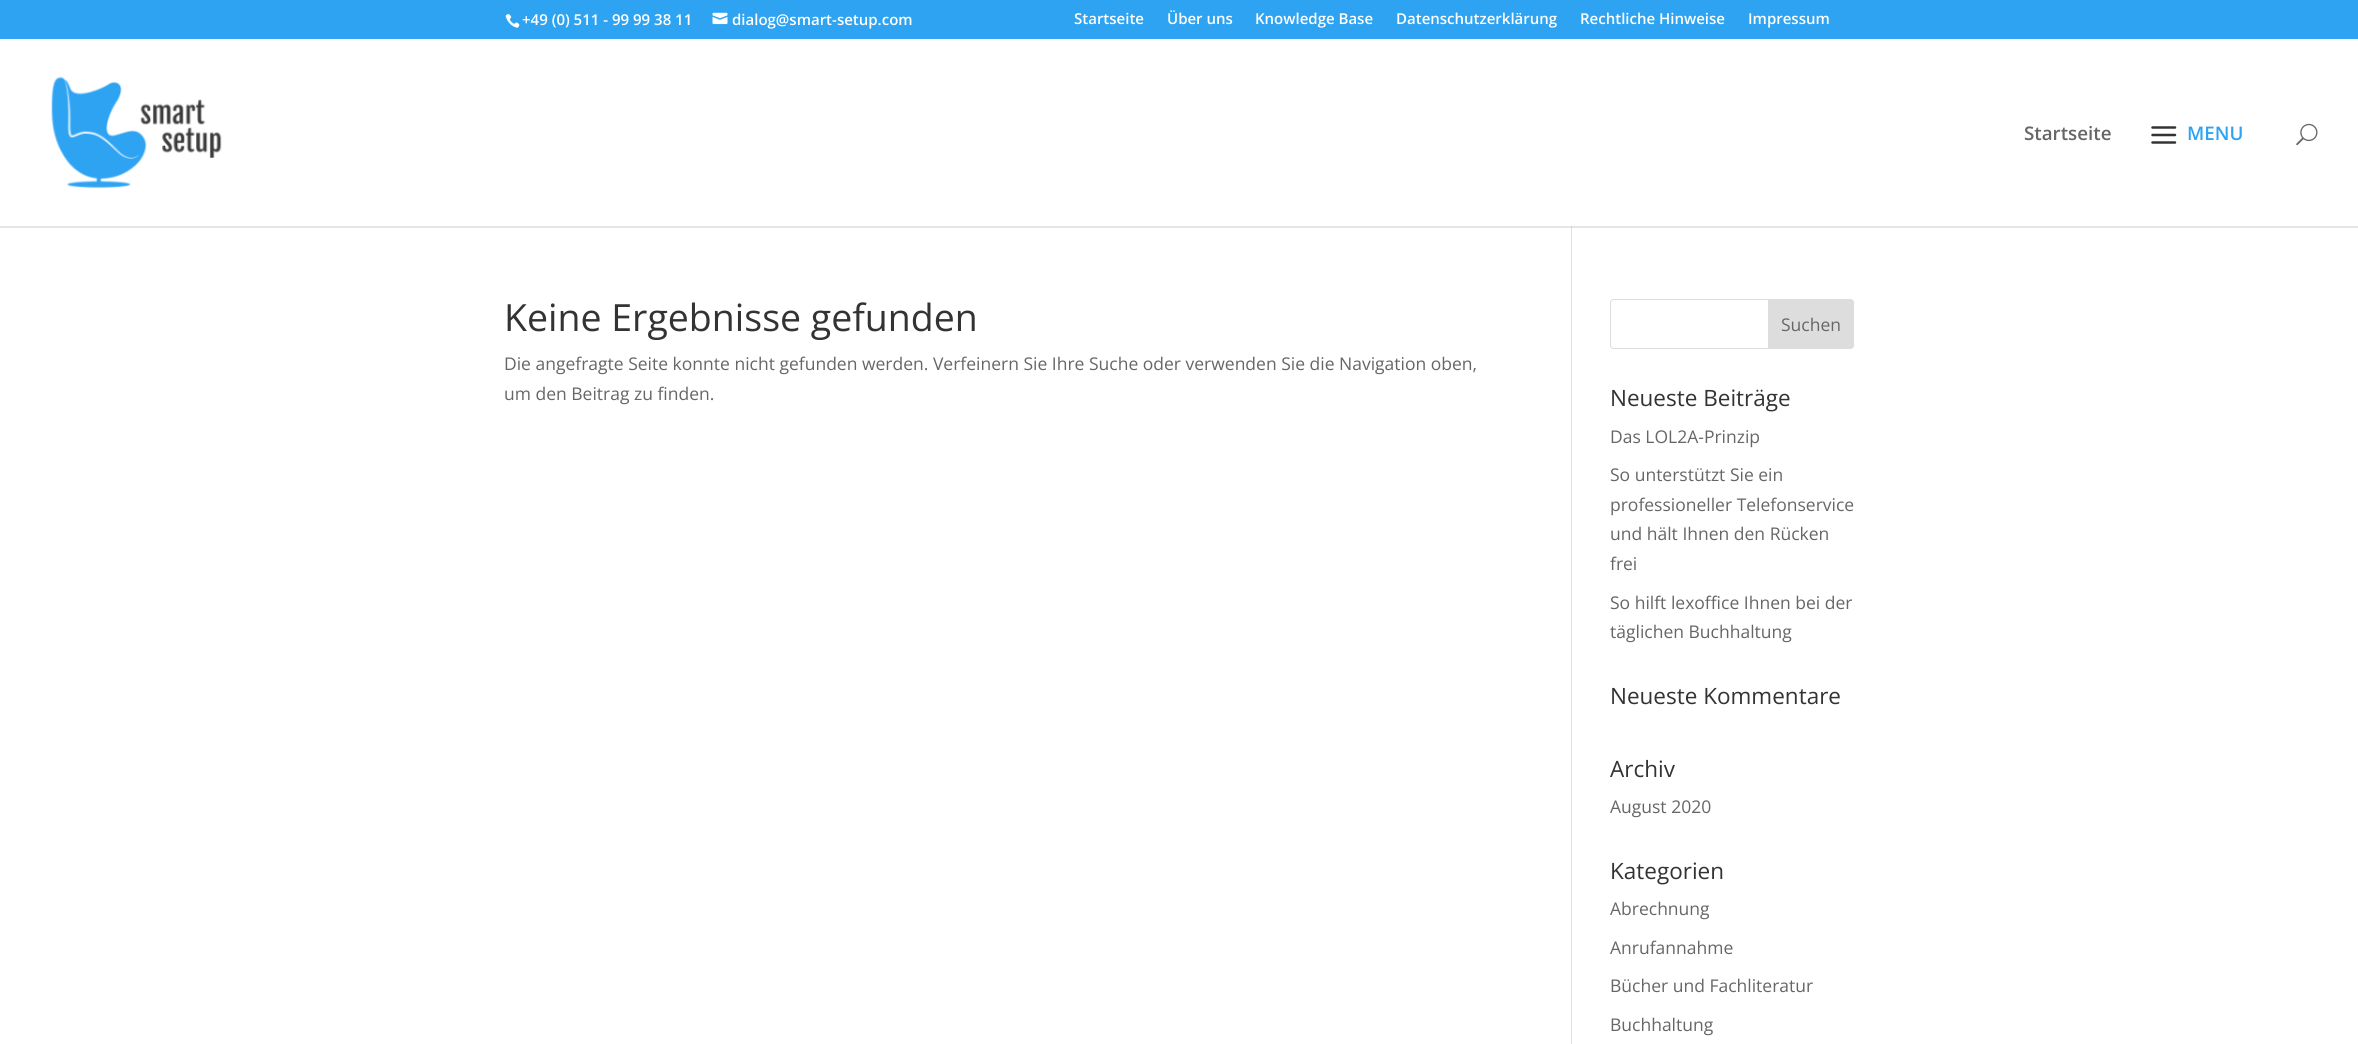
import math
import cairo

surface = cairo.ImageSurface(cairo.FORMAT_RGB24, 2358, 1044)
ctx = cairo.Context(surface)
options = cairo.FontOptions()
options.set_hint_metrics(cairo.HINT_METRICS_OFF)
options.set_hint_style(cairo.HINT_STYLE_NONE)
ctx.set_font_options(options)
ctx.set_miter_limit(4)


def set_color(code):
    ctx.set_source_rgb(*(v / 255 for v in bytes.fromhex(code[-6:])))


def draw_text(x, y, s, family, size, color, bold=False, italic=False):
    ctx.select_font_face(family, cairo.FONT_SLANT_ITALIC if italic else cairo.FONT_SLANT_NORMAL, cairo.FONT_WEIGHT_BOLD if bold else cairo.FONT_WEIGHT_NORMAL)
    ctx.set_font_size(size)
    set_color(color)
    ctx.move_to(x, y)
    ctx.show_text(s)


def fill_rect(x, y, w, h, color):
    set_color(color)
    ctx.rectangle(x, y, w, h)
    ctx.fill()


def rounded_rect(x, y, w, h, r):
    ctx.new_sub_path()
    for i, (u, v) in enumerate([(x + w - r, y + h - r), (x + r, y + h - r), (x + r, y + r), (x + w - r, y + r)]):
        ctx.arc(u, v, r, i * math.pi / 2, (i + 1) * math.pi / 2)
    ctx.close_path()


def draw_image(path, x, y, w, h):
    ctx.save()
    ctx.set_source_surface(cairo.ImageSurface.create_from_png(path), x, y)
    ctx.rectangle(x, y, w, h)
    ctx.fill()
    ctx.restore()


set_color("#ffffff")
ctx.paint()
fill_rect(0, 0, 2358, 39, "#2ea3f2")
draw_image("assets/img1.png", 505, 14, 15, 14)
draw_text(522, 25, "+49 (0) 511 - 99 99 38 11", "Open Sans SemiBold", 15, "#ffffff")
draw_image("assets/img2.png", 712, 12, 16, 13)
draw_text(732, 25, "dialog@smart-setup.com", "Open Sans SemiBold", 15, "#ffffff")
draw_text(1074, 24, "Startseite", "Open Sans SemiBold", 15, "#ffffff")
draw_text(1167, 24, "Über uns", "Open Sans SemiBold", 15, "#ffffff")
draw_text(1255, 24, "Knowledge Base", "Open Sans SemiBold", 15, "#ffffff")
draw_text(1396, 24, "Datenschutzerklärung", "Open Sans SemiBold", 15, "#ffffff")
draw_text(1580, 24, "Rechtliche Hinweise", "Open Sans SemiBold", 15, "#ffffff")
draw_text(1748, 24, "Impressum", "Open Sans SemiBold", 15, "#ffffff")
fill_rect(1571, 226, 1, 818, "#e2e2e2")
ctx.set_source_rgba(0, 0, 0, 0.1)
ctx.new_path()
ctx.move_to(0, 226)
ctx.line_to(0, 228)
ctx.line_to(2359, 228)
ctx.line_to(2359, 40)
ctx.line_to(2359, 226)
ctx.close_path()
ctx.fill()
draw_image("assets/img3.png", 51, 76, 171, 113)
draw_text(2024, 140, "Startseite", "Open Sans SemiBold", 18.75, "#666666")
draw_image("assets/img4.png", 2151, 126, 26, 18)
draw_text(2187, 140, "MENU", "Open Sans SemiBold", 18.75, "#2ea3f2")
draw_image("assets/img5.png", 2296, 123, 22, 23)
draw_text(504, 331, "Keine Ergebnisse gefunden", "Open Sans", 37.5, "#333333")
draw_text(504, 370, "Die angefragte Seite konnte nicht gefunden werden. Verfeinern Sie Ihre Suche oder verwenden Sie die Navigation oben,", "Open Sans", 17.5, "#666666")
draw_text(504, 400, "um den Beitrag zu finden.", "Open Sans", 17.5, "#666666")
rounded_rect(1610.5, 299.5, 243, 49, 3.5)
set_color("#dddddd")
ctx.set_line_width(1)
ctx.stroke()
ctx.new_path()
ctx.move_to(1768.5, 299.5)
ctx.line_to(1850, 299.5)
ctx.curve_to(1852, 299.5, 1853.5, 301, 1853.5, 303)
ctx.line_to(1853.5, 345)
ctx.curve_to(1853.5, 347, 1852, 348.5, 1850, 348.5)
ctx.line_to(1768.5, 348.5)
ctx.close_path()
ctx.fill_preserve()
ctx.stroke()
draw_text(1781, 331, "Suchen", "Open Sans", 17.5, "#666666")
draw_text(1610, 406, "Neueste Beiträge", "Open Sans", 22.5, "#333333")
draw_text(1610, 443, "Das LOL2A-Prinzip", "Open Sans", 17.5, "#666666")
draw_text(1610, 481, "So unterstützt Sie ein", "Open Sans", 17.5, "#666666")
draw_text(1610, 511, "professioneller Telefonservice", "Open Sans", 17.5, "#666666")
draw_text(1610, 540, "und hält Ihnen den Rücken", "Open Sans", 17.5, "#666666")
draw_text(1610, 570, "frei", "Open Sans", 17.5, "#666666")
draw_text(1610, 609, "So hilft lexoffice Ihnen bei der", "Open Sans", 17.5, "#666666")
draw_text(1610, 638, "täglichen Buchhaltung", "Open Sans", 17.5, "#666666")
draw_text(1610, 704, "Neueste Kommentare", "Open Sans", 22.5, "#333333")
draw_text(1610, 777, "Archiv", "Open Sans", 22.5, "#333333")
draw_text(1610, 813, "August 2020", "Open Sans", 17.5, "#666666")
draw_text(1610, 879, "Kategorien", "Open Sans", 22.5, "#333333")
draw_text(1610, 915, "Abrechnung", "Open Sans", 17.5, "#666666")
draw_text(1610, 954, "Anrufannahme", "Open Sans", 17.5, "#666666")
draw_text(1610, 992, "Bücher und Fachliteratur", "Open Sans", 17.5, "#666666")
draw_text(1610, 1031, "Buchhaltung", "Open Sans", 17.5, "#666666")
surface.write_to_png("output.png")
